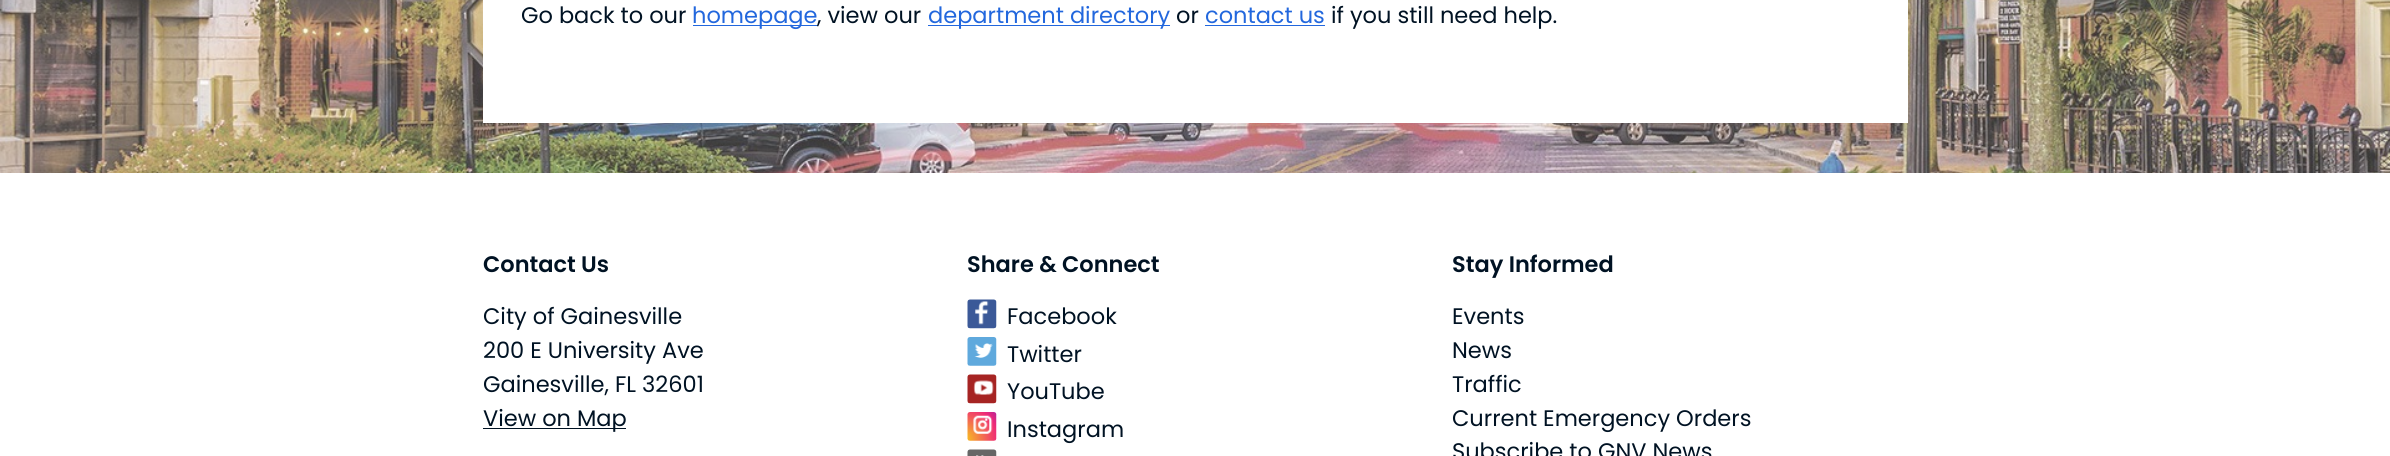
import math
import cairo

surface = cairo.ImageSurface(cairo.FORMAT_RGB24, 2390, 456)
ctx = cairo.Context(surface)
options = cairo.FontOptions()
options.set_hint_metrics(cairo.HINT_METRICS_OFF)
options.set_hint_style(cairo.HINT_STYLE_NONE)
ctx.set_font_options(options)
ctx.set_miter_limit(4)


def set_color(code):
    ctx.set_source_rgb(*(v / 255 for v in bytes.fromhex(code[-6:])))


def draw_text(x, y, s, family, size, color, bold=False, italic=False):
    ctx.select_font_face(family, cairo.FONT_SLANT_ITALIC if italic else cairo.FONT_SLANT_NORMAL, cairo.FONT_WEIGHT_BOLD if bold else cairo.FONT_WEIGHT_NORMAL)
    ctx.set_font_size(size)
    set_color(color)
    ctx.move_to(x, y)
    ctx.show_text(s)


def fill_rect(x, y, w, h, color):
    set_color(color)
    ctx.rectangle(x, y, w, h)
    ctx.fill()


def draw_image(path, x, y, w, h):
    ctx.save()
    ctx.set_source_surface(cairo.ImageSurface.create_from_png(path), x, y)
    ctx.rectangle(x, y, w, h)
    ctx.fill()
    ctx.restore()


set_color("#ffffff")
ctx.paint()
draw_image("assets/img1.png", 0, 0, 2390, 173)
fill_rect(483, 0, 1425, 123, "#ffffff")
draw_text(521, 23, "Go back to our", "Poppins", 22.5, "#001223")
fill_rect(693, 25, 125, 1, "#2267dd")
draw_text(692, 23, "homepage", "Poppins", 22.5, "#2267dd")
draw_text(817, 23, ", view our", "Poppins", 22.5, "#001223")
fill_rect(928, 25, 242, 1, "#2267dd")
draw_text(928, 23, "department directory", "Poppins", 22.5, "#2267dd")
draw_text(1176, 23, "or", "Poppins", 22.5, "#001223")
draw_text(1205, 23, "contact us", "Poppins", 22.5, "#2267dd")
fill_rect(1205, 25, 120, 1, "#2267dd")
draw_text(1331, 23, "if you still need help.", "Poppins", 22.5, "#001223")
draw_text(483, 272, "Contact Us", "Poppins SemiBold", 22.5, "#001223")
draw_text(483, 324, "City of Gainesville", "Poppins", 22.5, "#001223")
draw_text(483, 358, "200 E University Ave", "Poppins", 22.5, "#001223")
draw_text(483, 392, "Gainesville, FL 32601", "Poppins", 22.5, "#001223")
fill_rect(483, 428, 143, 1, "#001223")
draw_text(483, 426, "View on Map", "Poppins", 22.5, "#001223")
draw_text(967, 272, "Share & Connect", "Poppins SemiBold", 22.5, "#001223")
draw_image("assets/img2.png", 967, 299, 30, 30)
draw_text(1007, 324, "Facebook", "Poppins", 22.5, "#001223")
draw_image("assets/img3.png", 967, 337, 30, 29)
draw_text(1007, 362, "Twitter", "Poppins", 22.5, "#001223")
draw_image("assets/img4.png", 967, 374, 30, 30)
draw_text(1007, 399, "YouTube", "Poppins", 22.5, "#001223")
draw_image("assets/img5.png", 967, 412, 30, 29)
draw_text(1007, 437, "Instagram", "Poppins", 22.5, "#001223")
draw_image("assets/img6.png", 967, 449, 30, 7)
draw_text(1452, 272, "Stay Informed", "Poppins SemiBold", 22.5, "#001223")
draw_text(1452, 324, "Events", "Poppins", 22.5, "#001223")
draw_text(1452, 358, "News", "Poppins", 22.5, "#001223")
draw_text(1452, 392, "Traffic", "Poppins", 22.5, "#001223")
draw_text(1452, 426, "Current Emergency Orders", "Poppins", 22.5, "#001223")
draw_text(1452, 459, "Subscribe to GNV News", "Poppins", 22.5, "#001223")
surface.write_to_png("output.png")
